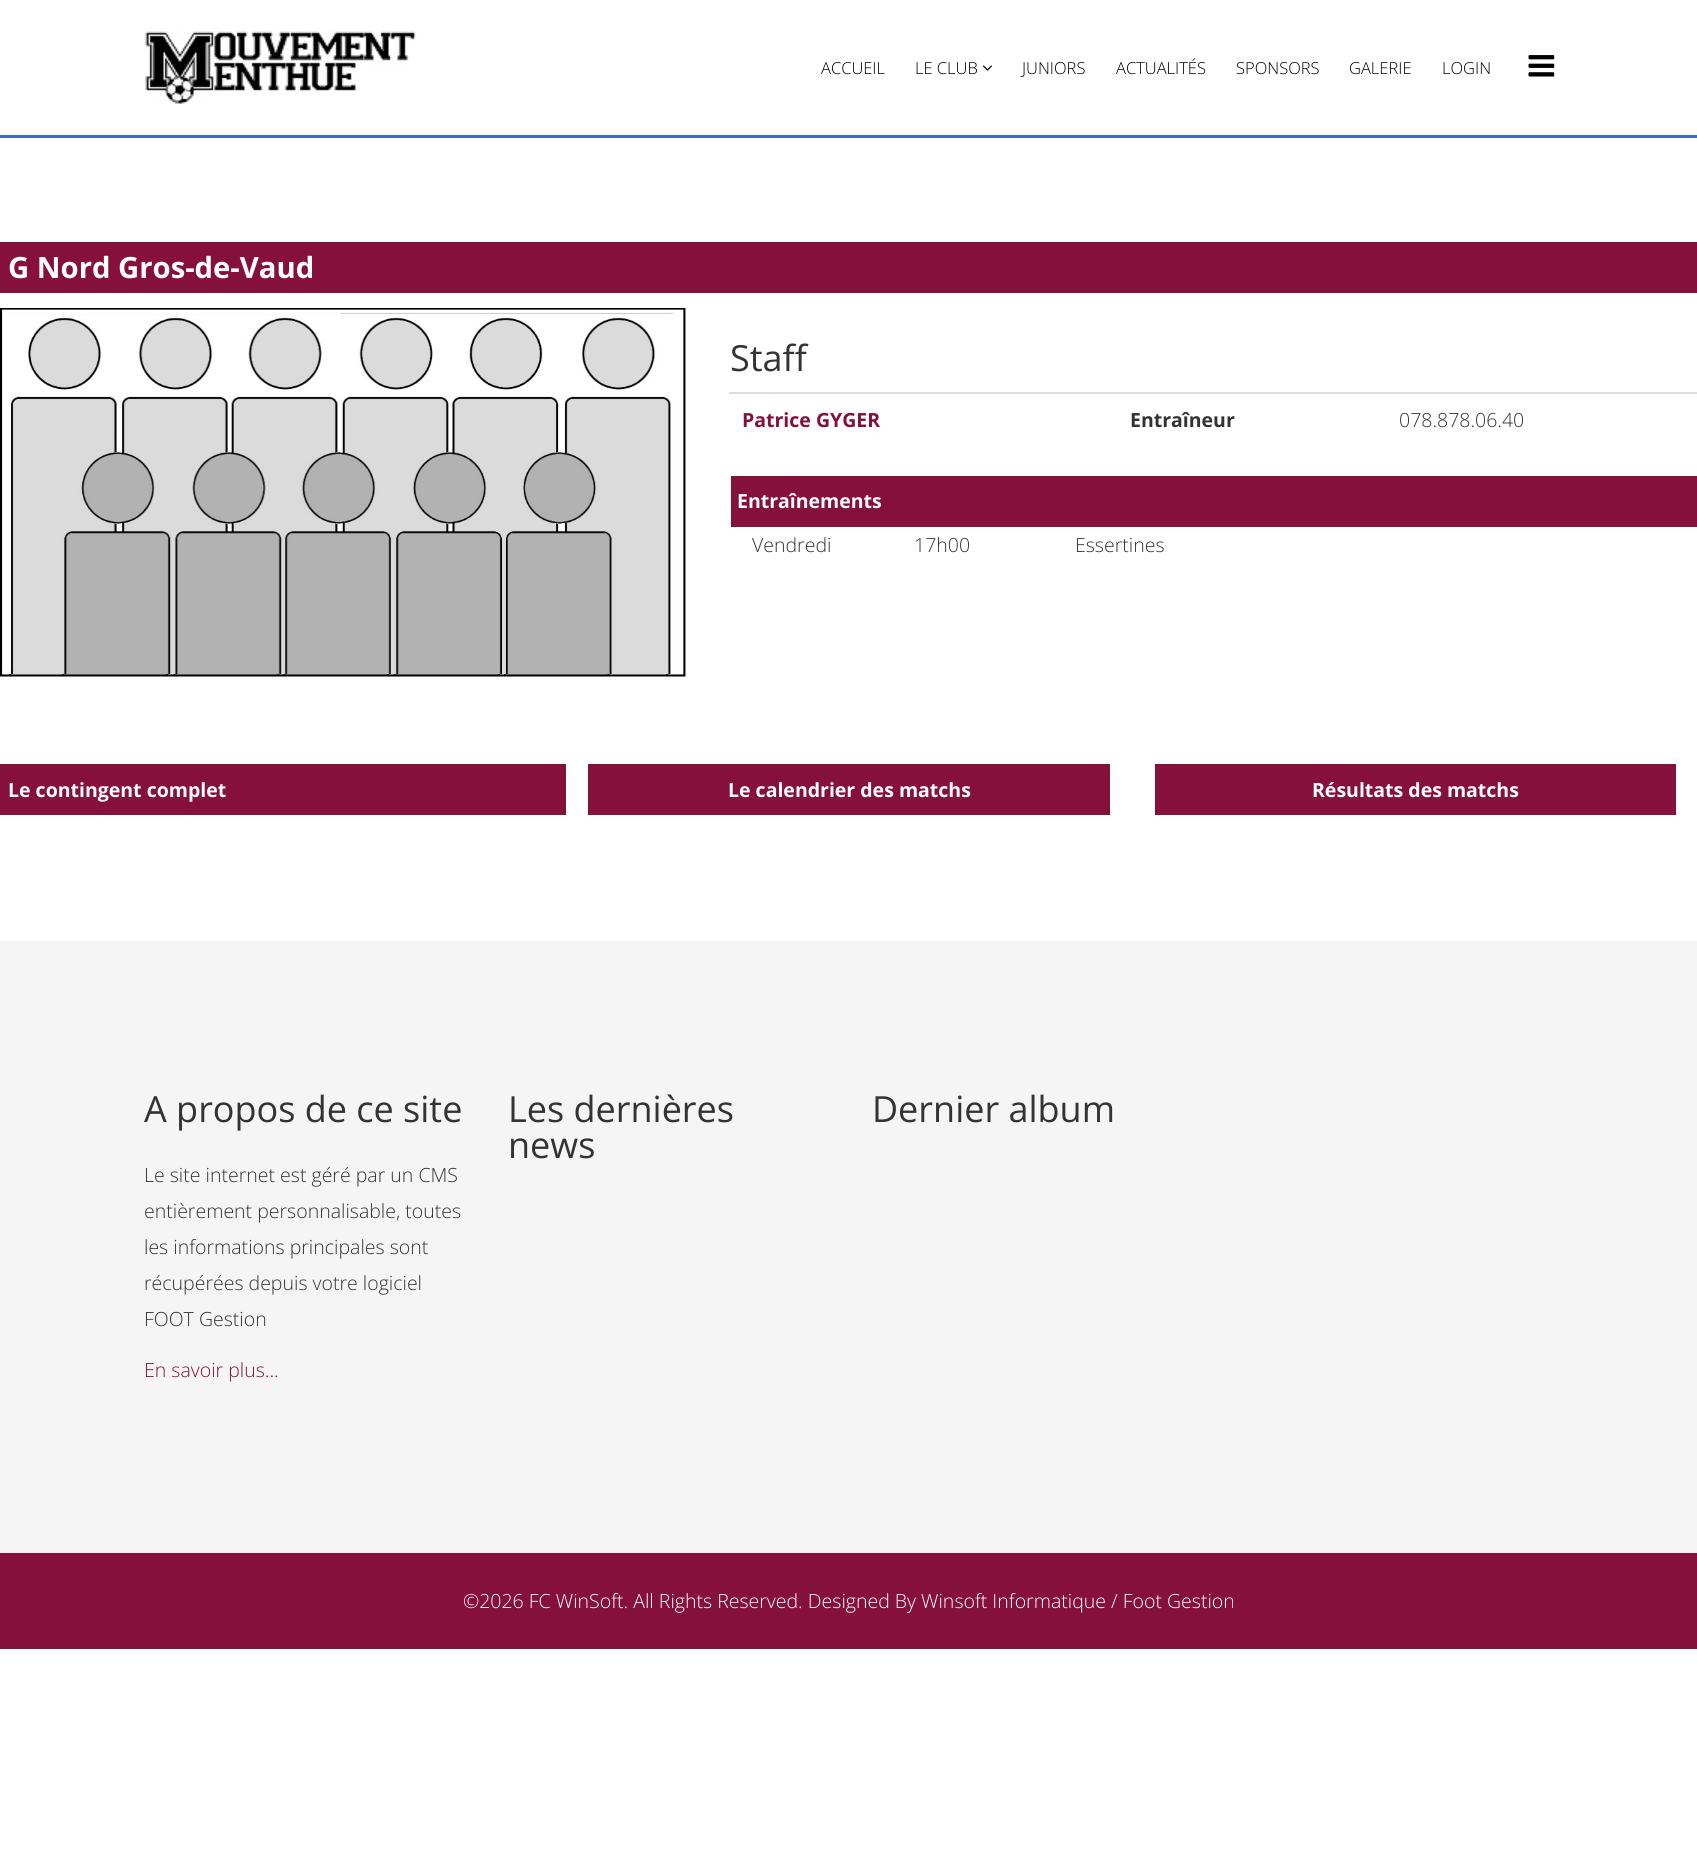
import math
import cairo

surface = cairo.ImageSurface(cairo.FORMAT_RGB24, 1697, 1849)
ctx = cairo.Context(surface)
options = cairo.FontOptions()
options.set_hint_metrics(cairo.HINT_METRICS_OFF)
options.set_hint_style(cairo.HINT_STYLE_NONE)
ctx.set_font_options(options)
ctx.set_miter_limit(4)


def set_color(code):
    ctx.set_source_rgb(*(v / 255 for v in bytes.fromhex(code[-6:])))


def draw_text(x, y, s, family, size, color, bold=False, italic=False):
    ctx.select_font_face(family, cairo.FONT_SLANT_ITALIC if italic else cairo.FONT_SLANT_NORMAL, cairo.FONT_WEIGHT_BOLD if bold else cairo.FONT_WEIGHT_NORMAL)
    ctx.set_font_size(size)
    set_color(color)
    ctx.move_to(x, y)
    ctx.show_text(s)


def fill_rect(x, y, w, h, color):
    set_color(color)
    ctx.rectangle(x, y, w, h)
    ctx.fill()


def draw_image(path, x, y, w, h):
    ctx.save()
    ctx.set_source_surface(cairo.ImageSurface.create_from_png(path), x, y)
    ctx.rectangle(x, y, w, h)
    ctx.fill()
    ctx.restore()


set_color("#ffffff")
ctx.paint()
fill_rect(0, 135, 1697, 3, "#426fb1")
draw_image("assets/img1.png", 144, 30, 273, 74)
draw_text(821, 74, "ACCUEIL", "Open Sans Light", 16.5, "#000000")
draw_text(915, 74, "LE CLUB", "Open Sans Light", 16.5, "#000000")
draw_image("assets/img2.png", 982, 65, 10, 6)
draw_text(1022, 74, "JUNIORS", "Open Sans Light", 16.5, "#000000")
draw_text(1116, 74, "ACTUALITÉS", "Open Sans Light", 16.5, "#000000")
draw_text(1236, 74, "SPONSORS", "Open Sans Light", 16.5, "#000000")
draw_text(1349, 74, "GALERIE", "Open Sans Light", 16.5, "#000000")
draw_text(1442, 74, "LOGIN", "Open Sans Light", 16.5, "#000000")
draw_image("assets/img3.png", 1528, 55, 27, 22)
fill_rect(0, 242, 1697, 51, "#85113a")
draw_text(8, 278, "G Nord Gros-de-Vaud", "Open Sans", 29.25, "#ffffff", bold=True)
draw_image("assets/img4.png", 0, 308, 686, 369)
draw_text(730, 371, "Staff", "Open Sans", 36, "#333333")
draw_text(742, 427, "Patrice GYGER", "Open Sans", 19.5, "#85113a", bold=True)
draw_text(1130, 427, "Entraîneur", "Open Sans", 19.5, "#333333", bold=True)
fill_rect(729, 392, 968, 2, "#dddddd")
draw_text(1399, 427, "078.878.06.40", "Open Sans Light", 19.5, "#333333")
fill_rect(731, 476, 966, 51, "#85113a")
draw_text(737, 508, "Entraînements", "Open Sans", 19.5, "#ffffff", bold=True)
draw_text(752, 552, "Vendredi", "Open Sans Light", 19.5, "#333333")
draw_text(914, 552, "17h00", "Open Sans Light", 19.5, "#333333")
draw_text(1075, 552, "Essertines", "Open Sans Light", 19.5, "#333333")
fill_rect(0, 764, 566, 51, "#85113a")
draw_text(8, 797, "Le contingent complet", "Open Sans", 19.5, "#ffffff", bold=True)
fill_rect(588, 764, 522, 51, "#85113a")
draw_text(728, 797, "Le calendrier des matchs", "Open Sans", 19.5, "#ffffff", bold=True)
fill_rect(1155, 764, 521, 51, "#85113a")
draw_text(1312, 797, "Résultats des matchs", "Open Sans", 19.5, "#ffffff", bold=True)
fill_rect(0, 941, 1697, 612, "#f5f5f5")
draw_text(144, 1122, "A propos de ce site", "Open Sans", 36, "#333333")
draw_text(144, 1182, "Le site internet est géré par un CMS", "Open Sans Light", 19.5, "#333333")
draw_text(144, 1218, "entièrement personnalisable, toutes", "Open Sans Light", 19.5, "#333333")
draw_text(144, 1254, "les informations principales sont", "Open Sans Light", 19.5, "#333333")
draw_text(144, 1290, "récupérées depuis votre logiciel", "Open Sans Light", 19.5, "#333333")
draw_text(144, 1326, "FOOT Gestion", "Open Sans Light", 19.5, "#333333")
draw_text(144, 1377, "En savoir plus...", "Open Sans Light", 19.5, "#85113a")
draw_text(508, 1122, "Les dernières", "Open Sans", 36, "#333333")
draw_text(508, 1158, "news", "Open Sans", 36, "#333333")
draw_text(872, 1122, "Dernier album", "Open Sans", 36, "#333333")
fill_rect(0, 1553, 1697, 96, "#85113a")
draw_text(463, 1608, "©2026 FC WinSoft. All Rights Reserved. Designed By Winsoft Informatique / Foot Gestion", "Open Sans Light", 19.5, "#ffffff")
surface.write_to_png("output.png")
